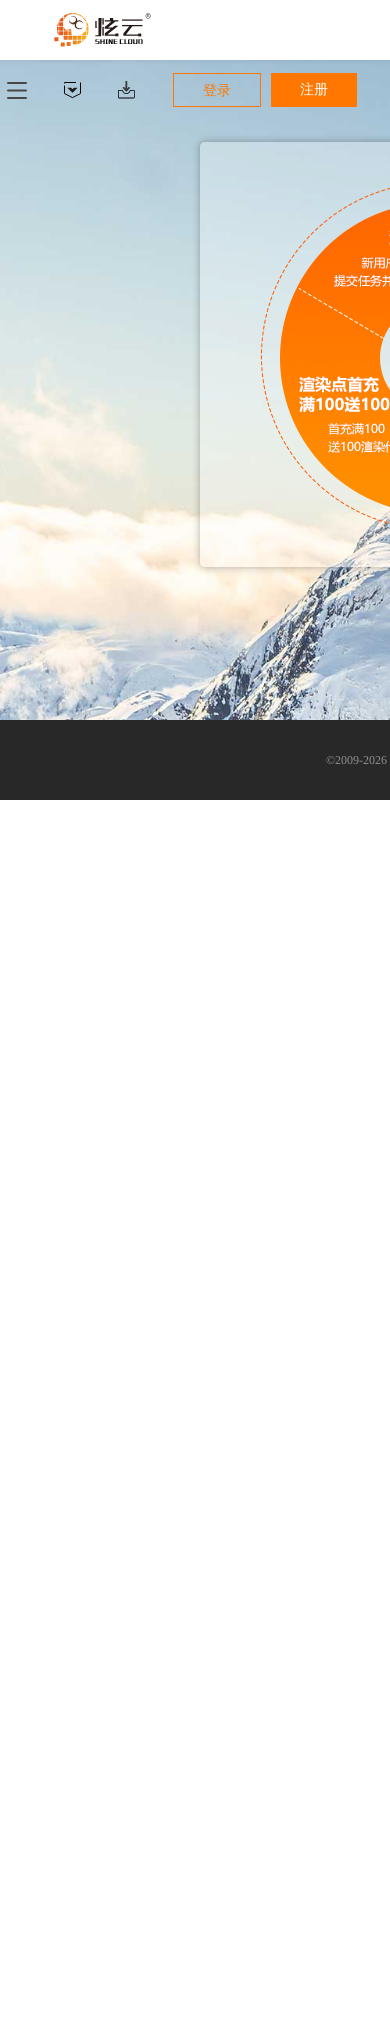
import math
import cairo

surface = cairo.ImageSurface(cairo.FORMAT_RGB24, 390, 2024)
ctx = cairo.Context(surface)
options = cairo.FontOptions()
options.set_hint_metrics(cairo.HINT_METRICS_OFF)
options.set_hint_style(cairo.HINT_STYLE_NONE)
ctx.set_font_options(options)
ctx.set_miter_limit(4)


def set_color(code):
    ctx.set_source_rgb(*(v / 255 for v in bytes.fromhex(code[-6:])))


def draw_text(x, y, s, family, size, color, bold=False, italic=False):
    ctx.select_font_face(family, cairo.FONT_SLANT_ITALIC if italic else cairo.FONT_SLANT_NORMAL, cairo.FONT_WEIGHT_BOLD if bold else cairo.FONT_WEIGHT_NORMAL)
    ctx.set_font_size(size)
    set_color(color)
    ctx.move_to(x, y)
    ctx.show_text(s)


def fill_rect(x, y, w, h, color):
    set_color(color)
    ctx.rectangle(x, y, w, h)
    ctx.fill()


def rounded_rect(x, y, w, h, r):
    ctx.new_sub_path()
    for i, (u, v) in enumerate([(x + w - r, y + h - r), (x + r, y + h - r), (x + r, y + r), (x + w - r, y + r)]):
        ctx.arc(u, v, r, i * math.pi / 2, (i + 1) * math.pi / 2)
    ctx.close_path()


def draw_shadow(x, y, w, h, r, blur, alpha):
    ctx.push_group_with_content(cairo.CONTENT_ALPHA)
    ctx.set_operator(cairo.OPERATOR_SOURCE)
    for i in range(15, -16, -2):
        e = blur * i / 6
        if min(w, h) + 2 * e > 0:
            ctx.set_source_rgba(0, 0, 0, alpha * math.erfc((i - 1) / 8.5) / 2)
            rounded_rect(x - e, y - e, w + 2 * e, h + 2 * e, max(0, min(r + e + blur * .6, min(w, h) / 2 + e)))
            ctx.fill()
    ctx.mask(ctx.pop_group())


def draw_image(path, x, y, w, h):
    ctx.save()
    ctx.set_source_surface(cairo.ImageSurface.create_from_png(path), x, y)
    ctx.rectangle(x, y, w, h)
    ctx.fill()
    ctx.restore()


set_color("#ffffff")
ctx.paint()
draw_image("assets/img1.png", 0, 60, 390, 660)
set_color("#000000")
draw_shadow(0, 0, 390, 60, 0, 3, 0.1)
fill_rect(0, 0, 390, 60, "#ffffff")
draw_image("assets/img2.png", 54, 12, 97, 35)
draw_image("assets/img3.png", 7, 82, 20, 17)
draw_image("assets/img4.png", 64, 82, 17, 17)
draw_image("assets/img5.png", 118, 81, 17, 18)
ctx.rectangle(173.5, 73.5, 87, 33)
set_color("#ff7700")
ctx.set_line_width(1)
ctx.stroke()
draw_text(203, 95, "登录", "WenQuanYi Zen Hei Medium", 14, "#ff7700")
fill_rect(271, 73, 86, 34, "#ff7700")
draw_text(300, 94, "注册", "WenQuanYi Zen Hei Medium", 14, "#ffffff")
ctx.save()
ctx.set_fill_rule(cairo.FILL_RULE_EVEN_ODD)
ctx.new_path()
ctx.move_to(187, 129)
ctx.line_to(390, 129)
ctx.line_to(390, 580)
ctx.line_to(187, 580)
ctx.close_path()
ctx.move_to(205, 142)
ctx.line_to(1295, 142)
ctx.curve_to(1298, 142, 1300, 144, 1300, 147)
ctx.line_to(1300, 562)
ctx.curve_to(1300, 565, 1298, 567, 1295, 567)
ctx.line_to(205, 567)
ctx.curve_to(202, 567, 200, 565, 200, 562)
ctx.line_to(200, 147)
ctx.curve_to(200, 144, 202, 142, 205, 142)
ctx.close_path()
ctx.clip()
set_color("#000000")
draw_shadow(200, 142, 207, 425, 5, 4, 0.3)
ctx.restore()
ctx.set_source_rgba(1, 1, 1, 0.3)
rounded_rect(200, 142, 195, 425, 5)
ctx.fill()
draw_image("assets/img6.png", 260, 188, 130, 336)
fill_rect(0, 720, 390, 80, "#282828")
draw_text(326, 764, "©2009-2026", "Liberation Serif", 12, "#8f8f8f")
surface.write_to_png("output.png")
